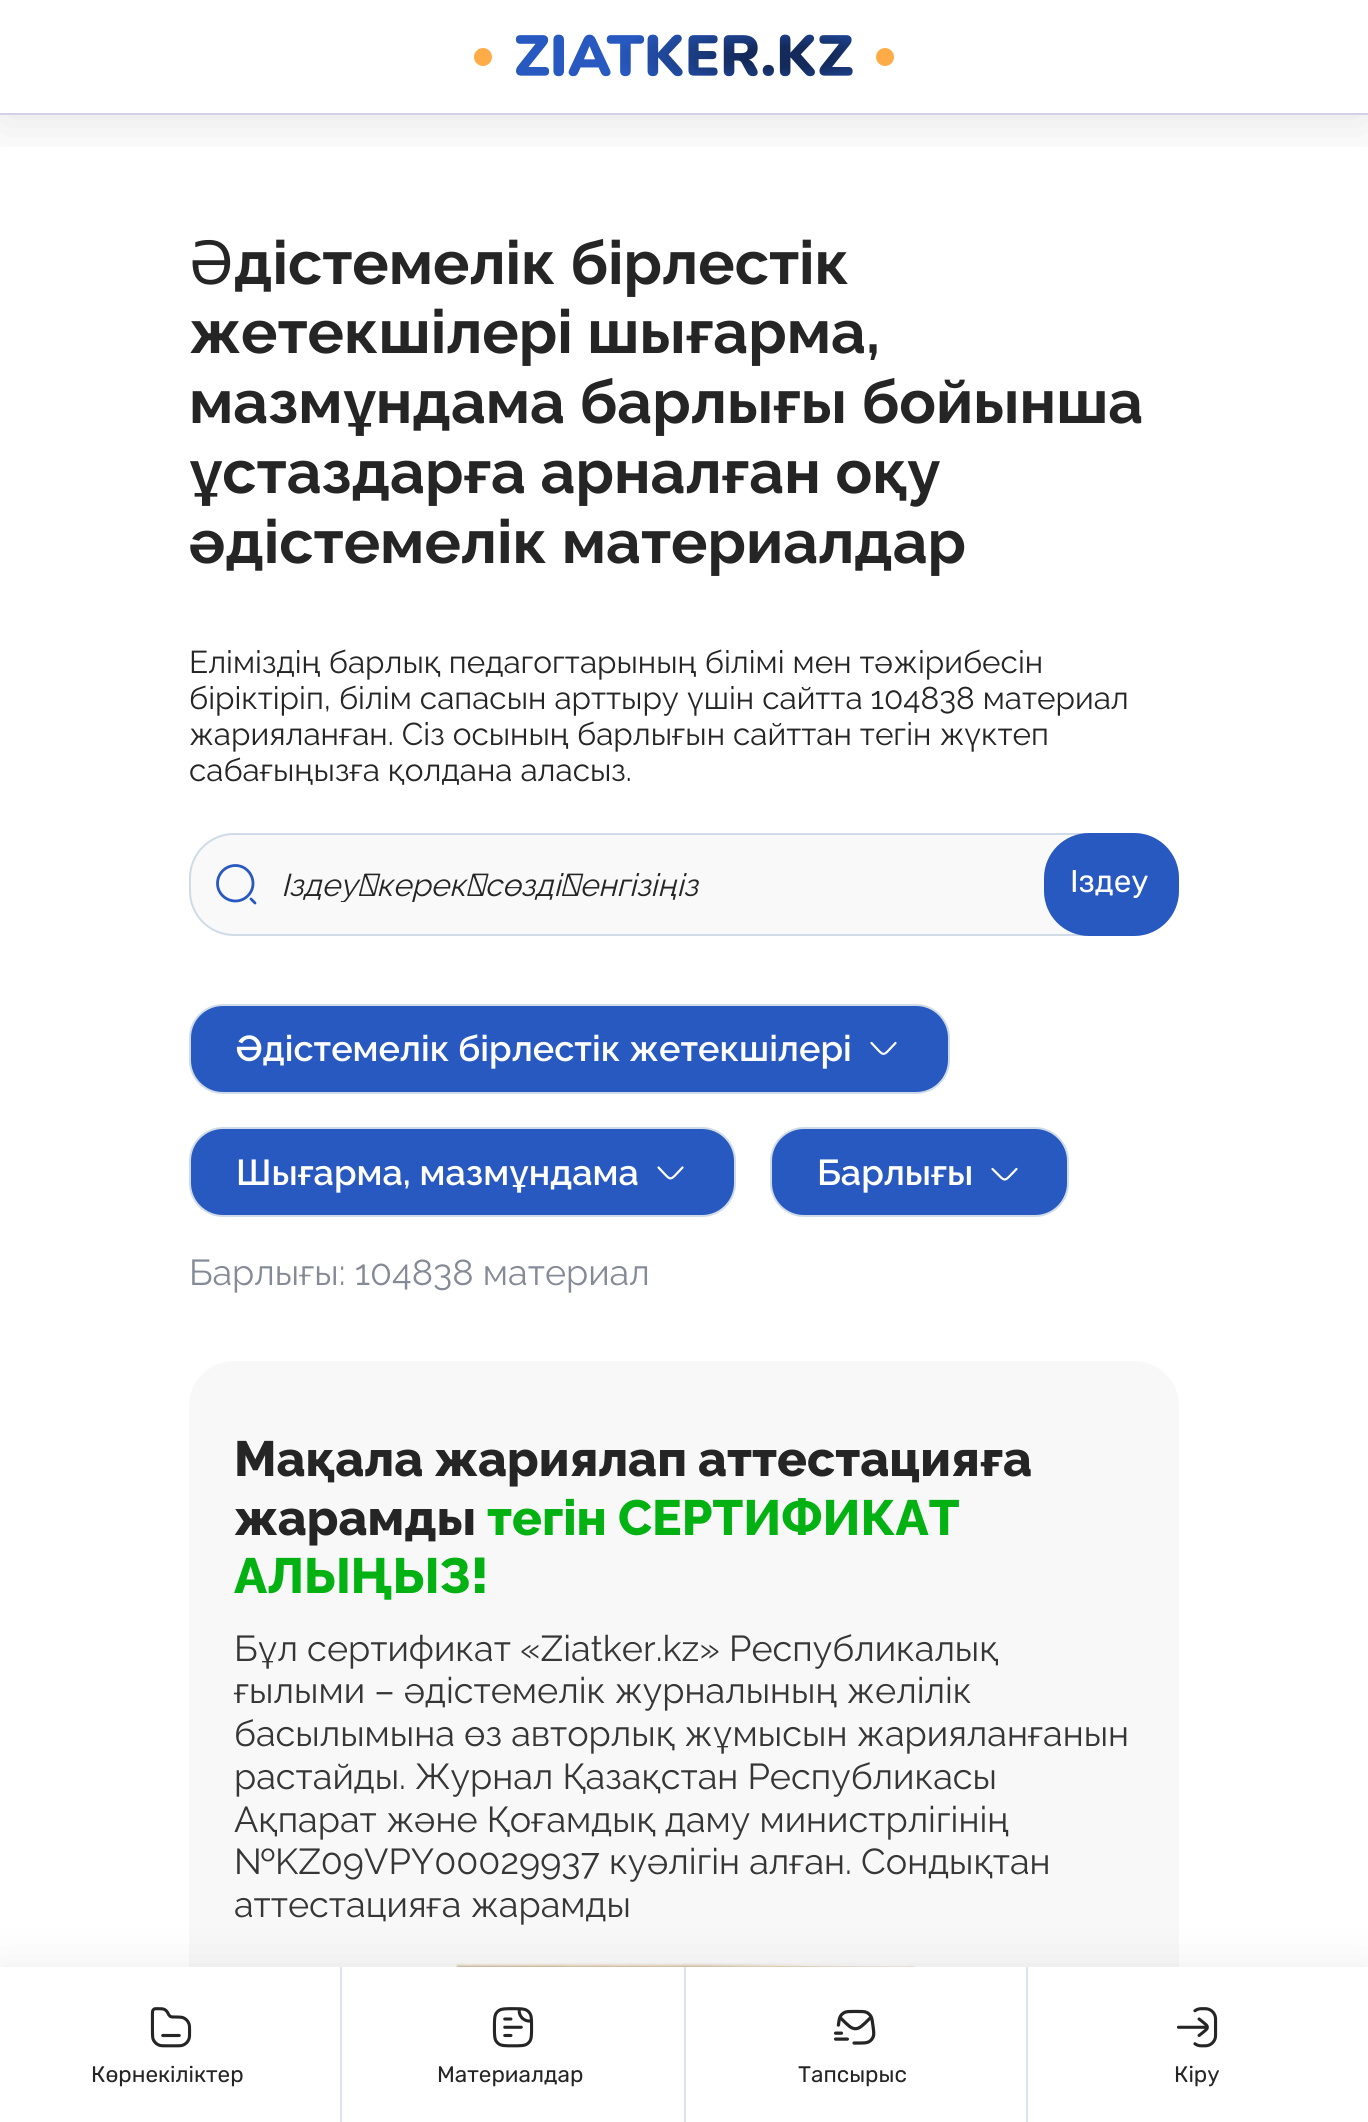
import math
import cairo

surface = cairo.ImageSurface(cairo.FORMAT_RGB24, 1368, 2122)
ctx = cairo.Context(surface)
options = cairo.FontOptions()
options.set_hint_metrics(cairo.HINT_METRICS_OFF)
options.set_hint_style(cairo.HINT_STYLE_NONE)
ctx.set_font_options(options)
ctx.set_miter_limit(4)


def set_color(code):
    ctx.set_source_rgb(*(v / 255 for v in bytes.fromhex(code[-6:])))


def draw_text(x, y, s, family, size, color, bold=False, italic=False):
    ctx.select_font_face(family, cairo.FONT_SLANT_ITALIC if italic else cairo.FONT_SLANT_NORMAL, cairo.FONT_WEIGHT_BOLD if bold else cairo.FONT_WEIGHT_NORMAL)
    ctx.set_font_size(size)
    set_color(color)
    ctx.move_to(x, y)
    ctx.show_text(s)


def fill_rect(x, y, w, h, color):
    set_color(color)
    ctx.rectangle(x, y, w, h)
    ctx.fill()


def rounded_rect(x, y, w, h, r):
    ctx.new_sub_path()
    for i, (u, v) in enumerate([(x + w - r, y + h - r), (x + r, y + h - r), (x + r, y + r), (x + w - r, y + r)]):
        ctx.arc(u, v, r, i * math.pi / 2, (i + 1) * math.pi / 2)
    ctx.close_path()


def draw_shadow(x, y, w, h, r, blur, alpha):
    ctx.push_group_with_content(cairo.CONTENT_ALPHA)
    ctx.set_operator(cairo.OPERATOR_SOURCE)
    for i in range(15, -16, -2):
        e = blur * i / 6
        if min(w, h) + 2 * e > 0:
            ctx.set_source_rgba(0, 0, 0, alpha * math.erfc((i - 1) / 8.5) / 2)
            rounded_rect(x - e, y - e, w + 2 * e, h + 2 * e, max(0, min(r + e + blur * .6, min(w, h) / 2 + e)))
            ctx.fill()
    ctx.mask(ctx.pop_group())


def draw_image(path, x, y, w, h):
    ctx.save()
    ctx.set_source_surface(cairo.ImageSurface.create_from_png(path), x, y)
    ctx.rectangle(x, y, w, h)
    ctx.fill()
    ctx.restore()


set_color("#ffffff")
ctx.paint()
ctx.save()
ctx.rectangle(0, 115, 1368, 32)
ctx.clip()
set_color("#000000")
draw_shadow(0, 9, 1368, 115, 0, 27, 0.1)
ctx.restore()
fill_rect(0, 113, 1368, 2, "#d5cfe8")
draw_image("assets/img1.png", 474, 34, 420, 43)
draw_text(189, 284, "Ә", "Noto Sans", 60.75, "#252525")
draw_text(234, 284, "дістемелік бірлестік", "Raleway Thin", 60.75, "#252525")
draw_text(189, 353, "жетекшілері шығарма,", "Raleway Thin", 60.75, "#252525")
draw_text(189, 423, "мазмұндама барлығы бойынша", "Raleway Thin", 60.75, "#252525")
draw_text(189, 493, "ұстаздарға арналған оқу", "Raleway Thin", 60.75, "#252525")
draw_text(189, 563, "әдістемелік материалдар", "Raleway Thin", 60.75, "#252525")
draw_text(189, 673, "Еліміздің барлық педагогтарының білімі мен тәжірибесін", "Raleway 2 Thin", 31.5, "#252525")
draw_text(189, 709, "біріктіріп, білім сапасын арттыру үшін сайтта 104838 материал", "Raleway 2 Thin", 31.5, "#252525")
draw_text(189, 745, "жарияланған. Сіз осының барлығын сайттан тегін жүктеп", "Raleway 2 Thin", 31.5, "#252525")
draw_text(189, 781, "сабағыңызға қолдана аласыз.", "Raleway 2 Thin", 31.5, "#252525")
set_color("#f9f9f9")
rounded_rect(189, 833, 990, 103, 45)
ctx.fill()
ctx.new_path()
ctx.move_to(235.5, 901)
ctx.curve_to(245, 901, 253, 893, 253, 883.5)
ctx.curve_to(253, 873.5, 245, 865.5, 235.5, 865.5)
ctx.curve_to(225.5, 865.5, 217.5, 873.5, 217.5, 883.5)
ctx.curve_to(217.5, 893, 225.5, 901, 235.5, 901)
ctx.close_path()
ctx.move_to(255, 903)
ctx.line_to(251, 899)
set_color("#2859c0")
ctx.set_line_width(2.8)
ctx.set_line_cap(cairo.LINE_CAP_ROUND)
ctx.set_line_join(cairo.LINE_JOIN_ROUND)
ctx.stroke()
rounded_rect(190, 834, 988, 101, 44)
set_color("#cfdce8")
ctx.set_line_width(2)
ctx.set_line_cap(cairo.LINE_CAP_BUTT)
ctx.set_line_join(cairo.LINE_JOIN_MITER)
ctx.stroke()
ctx.save()
ctx.rectangle(281, 866, 896, 36)
ctx.clip()
draw_text(281, 896, "Іздеу керек сөзді енгізіңіз", "Raleway Thin", 31.5, "#252525", italic=True)
ctx.restore()
set_color("#2859c0")
rounded_rect(1044, 833, 135, 103, 45)
ctx.fill()
draw_text(1070, 892, "Іздеу", "Rubik", 31.5, "#ffffff")
set_color("#2859c0")
rounded_rect(190, 1005, 759, 88, 33)
ctx.fill_preserve()
set_color("#cfdce8")
ctx.stroke()
draw_text(236, 1061, "Әдістемелік бірлестік жетекшілері", "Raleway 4 Thin", 36, "#ffffff")
ctx.new_path()
ctx.move_to(895.5, 1043)
ctx.curve_to(881.5, 1057.5, 885.5, 1057.5, 871.5, 1043)
ctx.set_line_width(2.2)
ctx.set_line_cap(cairo.LINE_CAP_ROUND)
ctx.set_line_join(cairo.LINE_JOIN_ROUND)
ctx.stroke()
set_color("#2859c0")
rounded_rect(190, 1128, 545, 88, 33)
ctx.fill_preserve()
set_color("#cfdce8")
ctx.set_line_width(2)
ctx.set_line_cap(cairo.LINE_CAP_BUTT)
ctx.set_line_join(cairo.LINE_JOIN_MITER)
ctx.stroke()
draw_text(236, 1185, "Шығарма, мазмұндама", "Raleway 4 Thin", 36, "#ffffff")
ctx.new_path()
ctx.move_to(682.5, 1167.5)
ctx.curve_to(668.5, 1182, 672.5, 1182, 658.5, 1167.5)
ctx.set_line_width(2.2)
ctx.set_line_cap(cairo.LINE_CAP_ROUND)
ctx.set_line_join(cairo.LINE_JOIN_ROUND)
ctx.stroke()
set_color("#2859c0")
rounded_rect(771, 1128, 297, 88, 33)
ctx.fill_preserve()
set_color("#cfdce8")
ctx.set_line_width(2)
ctx.set_line_cap(cairo.LINE_CAP_BUTT)
ctx.set_line_join(cairo.LINE_JOIN_MITER)
ctx.stroke()
draw_text(817, 1185, "Барлығы", "Raleway 4 Thin", 36, "#ffffff")
ctx.new_path()
ctx.move_to(1016.5, 1169)
ctx.curve_to(1002.5, 1183, 1007, 1183, 992.5, 1169)
ctx.set_line_width(2.2)
ctx.set_line_cap(cairo.LINE_CAP_ROUND)
ctx.set_line_join(cairo.LINE_JOIN_ROUND)
ctx.stroke()
draw_text(189, 1285, "Барлығы: 104838 материал", "Raleway 2 Thin", 36, "#858a97")
set_color("#f8f8f8")
rounded_rect(189, 1361, 990, 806, 45)
ctx.fill()
draw_text(234, 1476, "Мақала жариялап аттестацияға", "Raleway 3 Thin", 49.5, "#252525")
draw_text(234, 1535, "жарамды", "Raleway 3 Thin", 49.5, "#252525")
draw_text(487, 1535, "тегін СЕРТИФИКАТ", "Raleway 3 Thin", 49.5, "#03b113")
draw_text(234, 1593, "АЛЫҢЫЗ!", "Raleway 3 Thin", 49.5, "#03b113")
draw_text(234, 1661, "Бұл сертификат «Ziatker.kz» Республикалық", "Raleway 2 Thin", 36, "#363636")
draw_text(234, 1703, "ғылыми – әдістемелік журналының желілік", "Raleway 2 Thin", 36, "#363636")
draw_text(234, 1746, "басылымына өз авторлық жұмысын жарияланғанын", "Raleway 2 Thin", 36, "#363636")
draw_text(234, 1789, "растайды. Журнал Қазақстан Республикасы", "Raleway 2 Thin", 36, "#363636")
draw_text(234, 1832, "Ақпарат және Қоғамдық даму министрлігінің", "Raleway 2 Thin", 36, "#363636")
draw_text(234, 1874, "№KZ09VPY00029937 куәлігін алған. Сондықтан", "Raleway 2 Thin", 36, "#363636")
draw_text(234, 1917, "аттестацияға жарамды", "Raleway 2 Thin", 36, "#363636")
draw_image("assets/img2.png", 456, 1963, 460, 4)
set_color("#000000")
draw_shadow(0, 1976, 1368, 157, 0, 27, 0.1)
fill_rect(340, 1967, 688, 155, "#dce3ed")
fill_rect(0, 1967, 340, 155, "#ffffff")
draw_image("assets/img3.png", 150, 2007, 42, 41)
draw_text(91, 2082, "Көрнекіліктер", "Rubik", 22.5, "#252525")
fill_rect(342, 1967, 342, 155, "#ffffff")
draw_image("assets/img4.png", 492, 2007, 42, 41)
draw_text(437, 2082, "Материалдар", "Rubik", 22.5, "#252525")
fill_rect(686, 1967, 340, 155, "#ffffff")
draw_image("assets/img5.png", 833, 2009, 43, 36)
draw_text(798, 2082, "Тапсырыс", "Rubik", 22.5, "#252525")
fill_rect(1028, 1967, 340, 155, "#ffffff")
draw_image("assets/img6.png", 1176, 2007, 42, 41)
draw_text(1174, 2082, "Кіру", "Rubik", 22.5, "#252525")
surface.write_to_png("output.png")
